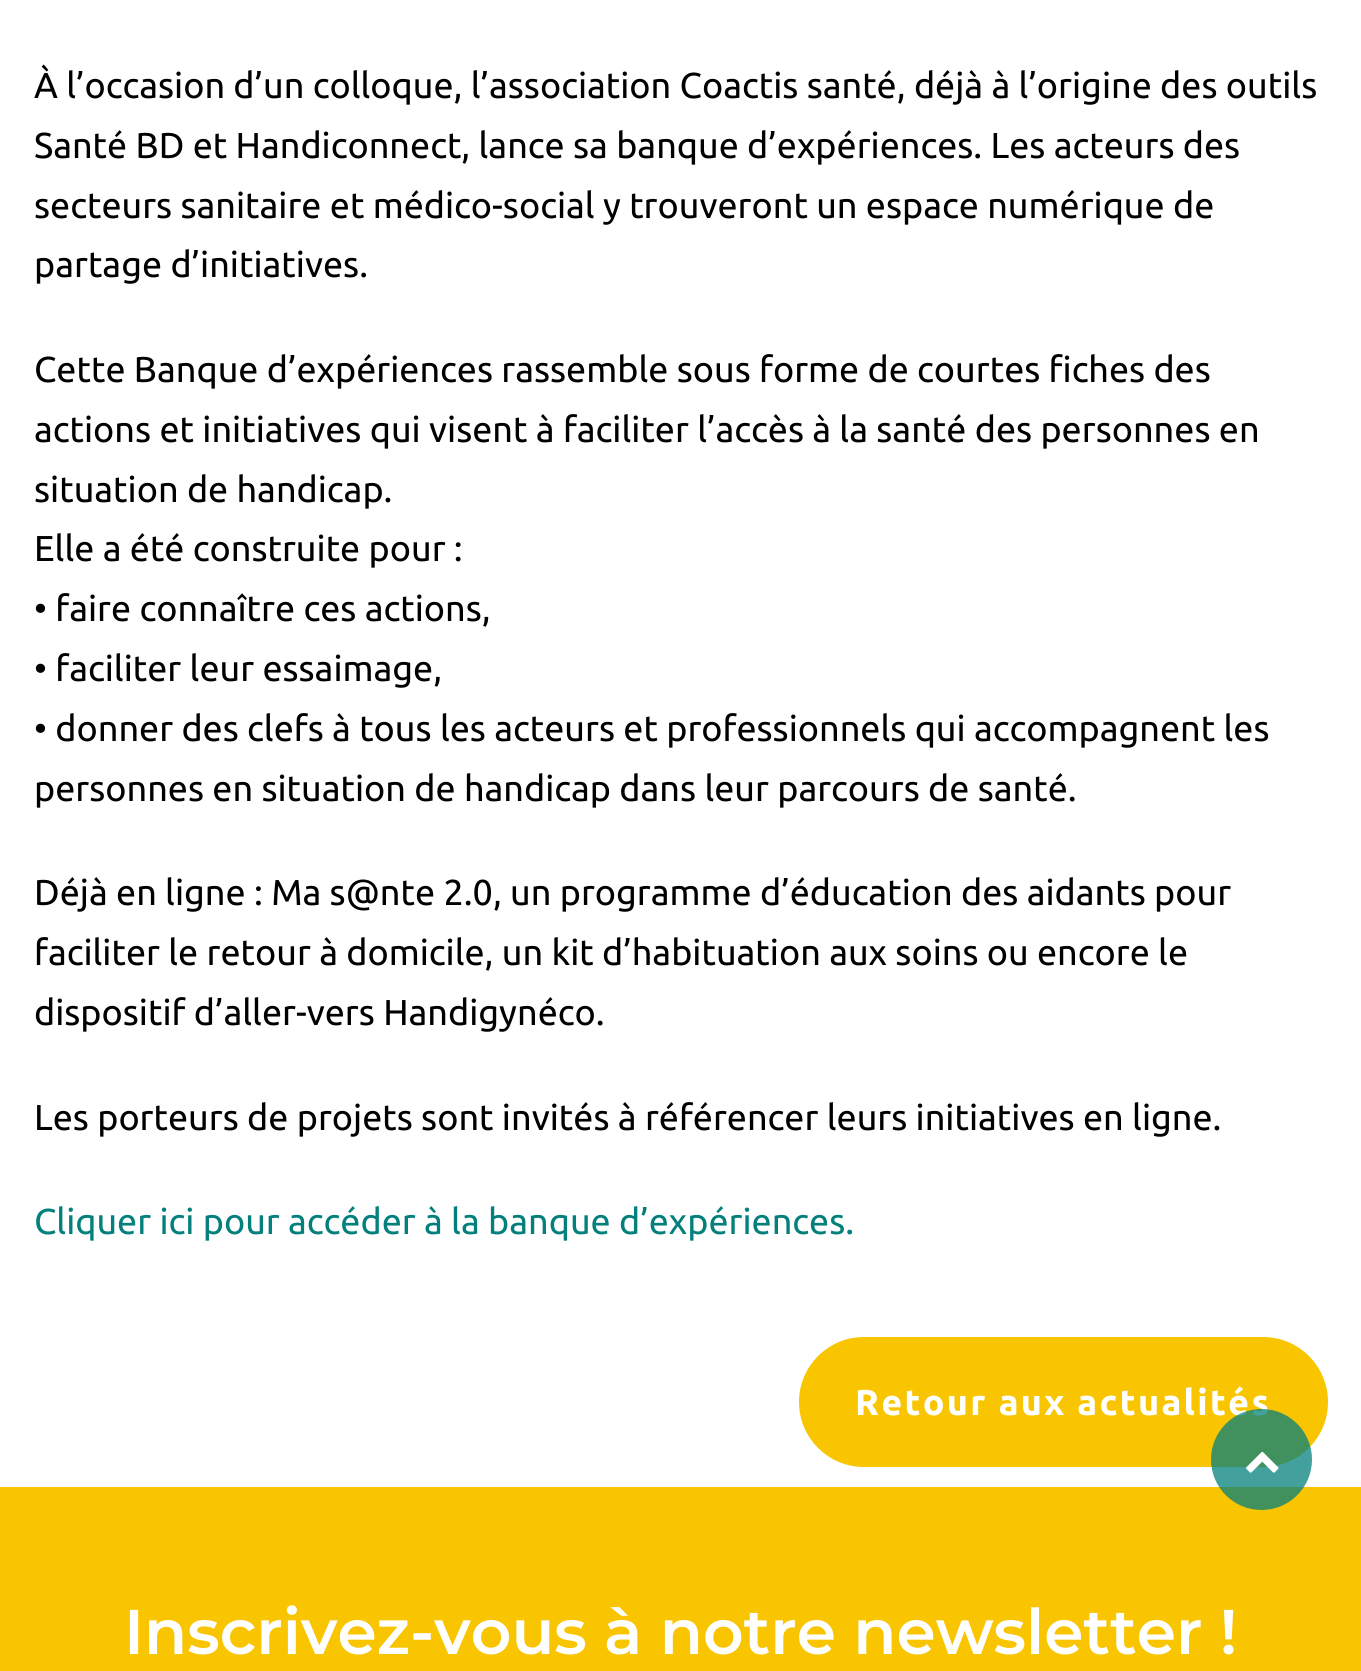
import math
import cairo

surface = cairo.ImageSurface(cairo.FORMAT_RGB24, 1361, 1671)
ctx = cairo.Context(surface)
options = cairo.FontOptions()
options.set_hint_metrics(cairo.HINT_METRICS_OFF)
options.set_hint_style(cairo.HINT_STYLE_NONE)
ctx.set_font_options(options)
ctx.set_miter_limit(4)


def set_color(code):
    ctx.set_source_rgb(*(v / 255 for v in bytes.fromhex(code[-6:])))


def draw_text(x, y, s, family, size, color, bold=False, italic=False):
    ctx.select_font_face(family, cairo.FONT_SLANT_ITALIC if italic else cairo.FONT_SLANT_NORMAL, cairo.FONT_WEIGHT_BOLD if bold else cairo.FONT_WEIGHT_NORMAL)
    ctx.set_font_size(size)
    set_color(color)
    ctx.move_to(x, y)
    ctx.show_text(s)


def draw_spaced(x, y, s, letter, word):
    ctx.move_to(x, y)
    for ch in s:
        ctx.show_text(ch)
        ctx.rel_move_to(letter + word * (ch == ' '), 0)


def fill_rect(x, y, w, h, color):
    set_color(color)
    ctx.rectangle(x, y, w, h)
    ctx.fill()


def rounded_rect(x, y, w, h, r):
    ctx.new_sub_path()
    for i, (u, v) in enumerate([(x + w - r, y + h - r), (x + r, y + h - r), (x + r, y + r), (x + w - r, y + r)]):
        ctx.arc(u, v, r, i * math.pi / 2, (i + 1) * math.pi / 2)
    ctx.close_path()


def draw_image(path, x, y, w, h):
    ctx.save()
    ctx.set_source_surface(cairo.ImageSurface.create_from_png(path), x, y)
    ctx.rectangle(x, y, w, h)
    ctx.fill()
    ctx.restore()


set_color("#ffffff")
ctx.paint()
draw_text(34, 98, "À l’occasion d’un colloque, l’association Coactis santé, déjà à l’origine des outils", "Ubuntu", 36, "#000000")
draw_text(34, 158, "Santé BD et Handiconnect, lance sa banque d’expériences. Les acteurs des", "Ubuntu", 36, "#000000")
draw_text(34, 218, "secteurs sanitaire et médico-social y trouveront un espace numérique de", "Ubuntu", 36, "#000000")
draw_text(34, 277, "partage d’initiatives.", "Ubuntu", 36, "#000000")
draw_text(34, 382, "Cette Banque d’expériences rassemble sous forme de courtes fiches des", "Ubuntu", 36, "#000000")
draw_text(34, 442, "actions et initiatives qui visent à faciliter l’accès à la santé des personnes en", "Ubuntu", 36, "#000000")
draw_text(34, 502, "situation de handicap.", "Ubuntu", 36, "#000000")
draw_text(34, 561, "Elle a été construite pour :", "Ubuntu", 36, "#000000")
draw_text(34, 621, "• faire connaître ces actions,", "Ubuntu", 36, "#000000")
draw_text(34, 681, "• faciliter leur essaimage,", "Ubuntu", 36, "#000000")
draw_text(34, 741, "• donner des clefs à tous les acteurs et professionnels qui accompagnent les", "Ubuntu", 36, "#000000")
draw_text(34, 801, "personnes en situation de handicap dans leur parcours de santé.", "Ubuntu", 36, "#000000")
draw_text(34, 905, "Déjà en ligne : Ma s@nte 2.0, un programme d’éducation des aidants pour", "Ubuntu", 36, "#000000")
draw_text(34, 965, "faciliter le retour à domicile, un kit d’habituation aux soins ou encore le", "Ubuntu", 36, "#000000")
draw_text(34, 1025, "dispositif d’aller-vers Handigynéco.", "Ubuntu", 36, "#000000")
draw_text(34, 1130, "Les porteurs de projets sont invités à référencer leurs initiatives en ligne.", "Ubuntu", 36, "#000000")
draw_text(34, 1234, "Cliquer ici pour accéder à la banque d’expériences.", "Ubuntu", 36, "#03807c")
set_color("#f9c500")
rounded_rect(799, 1337, 529, 130, 65)
ctx.fill()
ctx.select_font_face("Ubuntu", cairo.FONT_SLANT_NORMAL, cairo.FONT_WEIGHT_BOLD)
set_color("#ffffff")
draw_spaced(855, 1415, "Retour aux actualités", 2.25, 0)
fill_rect(0, 1487, 1361, 184, "#f9c500")
draw_text(124, 1654, "Inscrivez-vous à notre newsletter !", "Montserrat SemiBold", 63, "#ffffff")
ctx.set_source_rgba(0.012, 0.502, 0.486, 0.75)
ctx.new_path()
ctx.arc(1261.5, 1459.5, 50.5, 0, 2 * math.pi)
ctx.fill()
draw_image("assets/img1.png", 1246, 1451, 33, 22)
surface.write_to_png("output.png")
